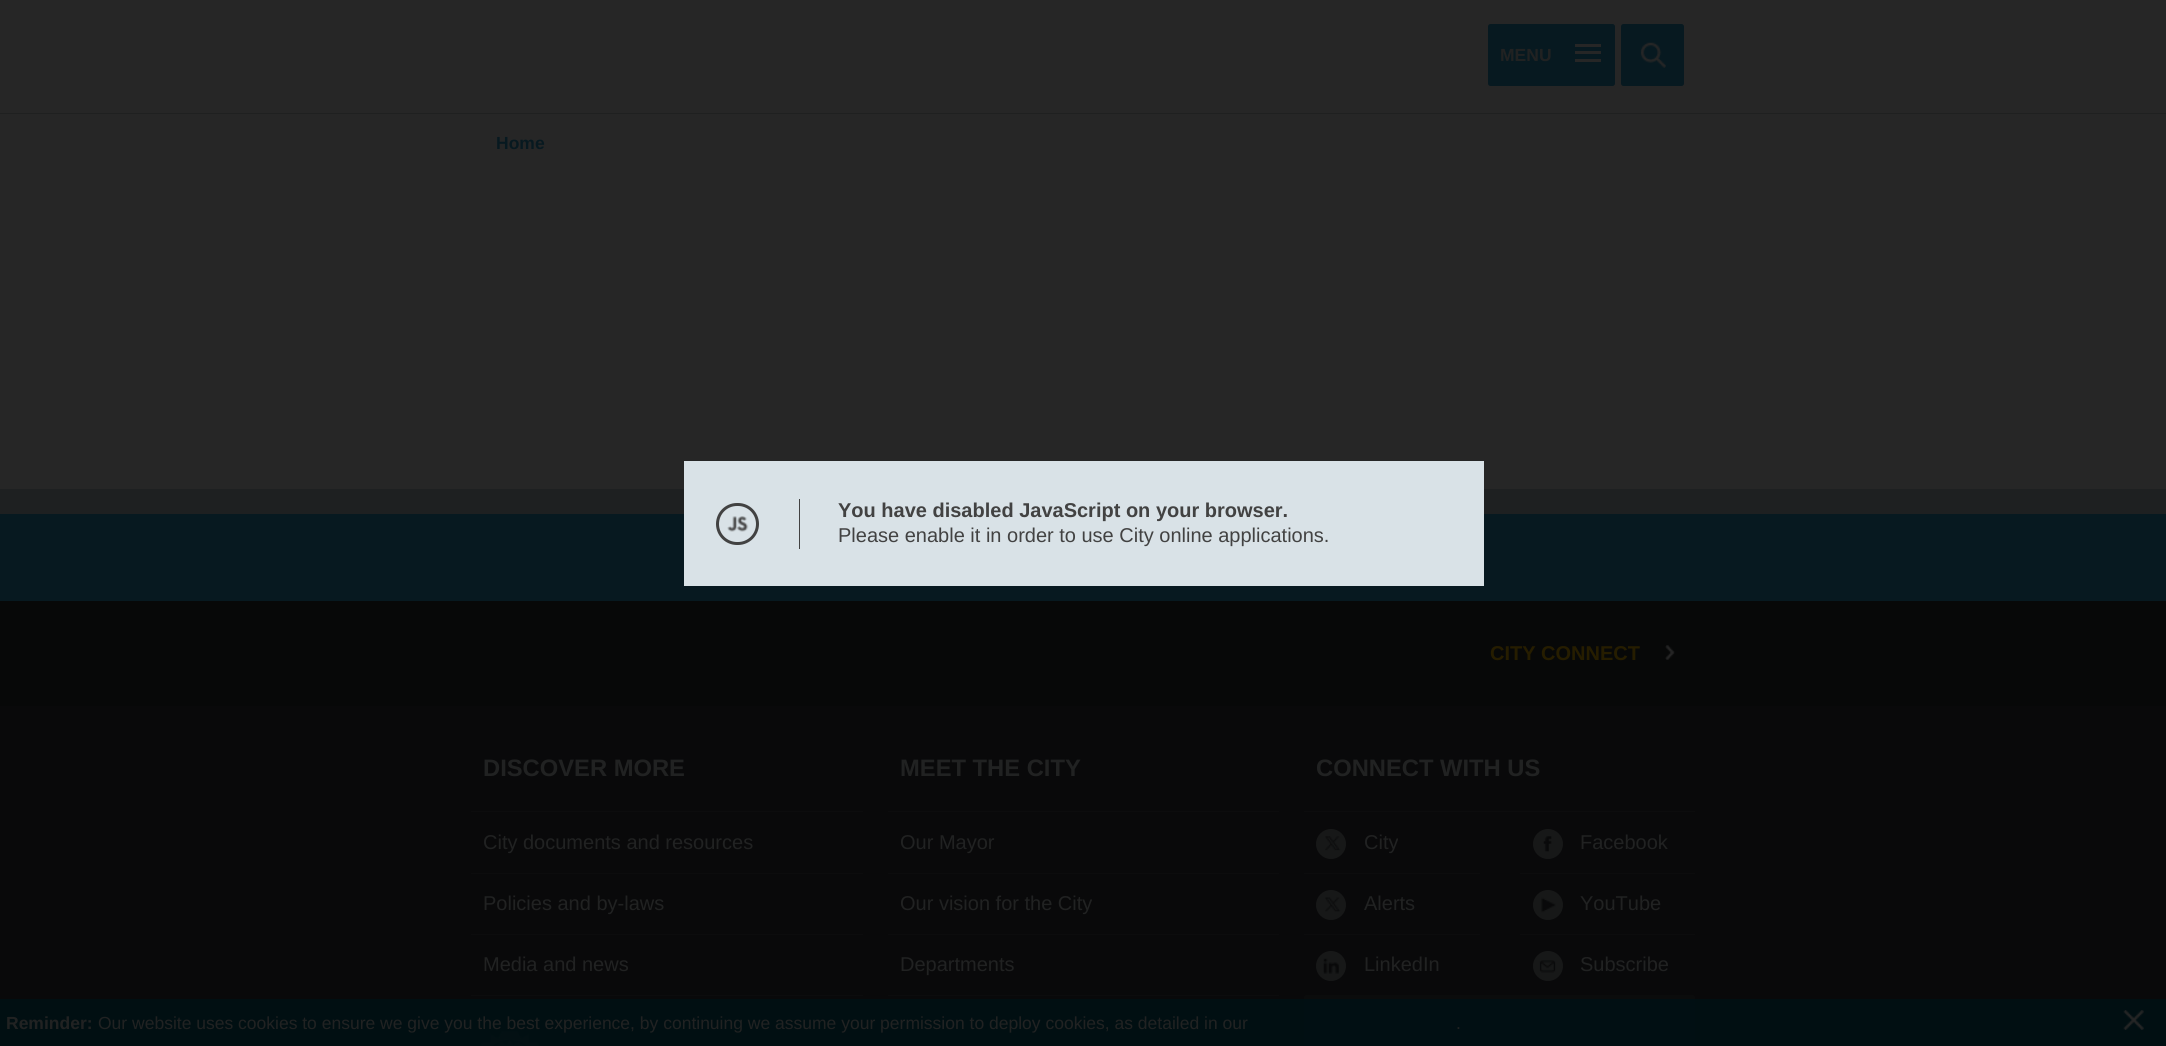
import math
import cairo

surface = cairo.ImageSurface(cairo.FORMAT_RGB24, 2166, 1046)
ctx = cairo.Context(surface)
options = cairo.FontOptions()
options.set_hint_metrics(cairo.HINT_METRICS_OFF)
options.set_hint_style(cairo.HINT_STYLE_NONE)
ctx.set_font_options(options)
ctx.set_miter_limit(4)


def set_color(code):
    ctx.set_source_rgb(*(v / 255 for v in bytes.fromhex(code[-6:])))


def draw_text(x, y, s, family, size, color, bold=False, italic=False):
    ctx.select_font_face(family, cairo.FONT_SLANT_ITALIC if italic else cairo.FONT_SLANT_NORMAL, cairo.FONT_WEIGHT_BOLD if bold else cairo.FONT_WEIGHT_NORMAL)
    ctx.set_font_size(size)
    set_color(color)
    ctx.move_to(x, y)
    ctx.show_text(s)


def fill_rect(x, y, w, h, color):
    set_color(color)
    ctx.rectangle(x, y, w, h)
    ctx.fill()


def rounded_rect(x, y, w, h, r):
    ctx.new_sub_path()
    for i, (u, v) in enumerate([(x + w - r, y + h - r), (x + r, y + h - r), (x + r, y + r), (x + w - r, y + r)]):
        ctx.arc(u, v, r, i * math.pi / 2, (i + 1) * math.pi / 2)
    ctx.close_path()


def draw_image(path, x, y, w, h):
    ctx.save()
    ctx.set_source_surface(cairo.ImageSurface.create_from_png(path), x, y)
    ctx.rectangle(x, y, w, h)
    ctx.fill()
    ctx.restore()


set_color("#1e2021")
ctx.paint()
fill_rect(0, 0, 2166, 489, "#262626")
set_color("#071920")
rounded_rect(1488, 24, 127, 62, 2.5)
ctx.fill()
draw_text(1500, 61, "MENU", "Liberation Sans", 17.5, "#212222", bold=True)
fill_rect(1575, 51, 26, 3, "#262626")
fill_rect(1575, 44, 26, 3, "#262626")
fill_rect(1575, 59, 26, 3, "#262626")
set_color("#071920")
rounded_rect(1621, 24, 63, 62, 2.5)
ctx.fill()
draw_image("assets/img1.png", 1640, 42, 26, 26)
fill_rect(0, 113, 2166, 1, "#1f2020")
draw_text(496, 149, "Home", "Liberation Sans", 17.5, "#071920", bold=True)
fill_rect(0, 514, 2166, 87, "#071920")
fill_rect(684, 461, 800, 125, "#d9e2e7")
draw_image("assets/img2.png", 727, 516, 22, 16)
rounded_rect(717.5, 504.5, 40, 39, 19.5)
set_color("#424242")
ctx.set_line_width(3)
ctx.stroke()
fill_rect(799, 499, 1, 50, "#424242")
draw_text(838, 517, "You have disabled JavaScript on your browser.", "Liberation Sans", 20, "#424242", bold=True)
draw_text(838, 542, "Please enable it in order to use City online applications.", "Liberation Sans", 20, "#424242")
fill_rect(0, 601, 2166, 105, "#070808")
draw_text(1490, 660, "CITY CONNECT", "Liberation Sans", 20, "#261d00", bold=True)
draw_image("assets/img3.png", 1665, 645, 10, 15)
fill_rect(0, 706, 2166, 293, "#09090a")
fill_rect(0, 999, 2166, 47, "#010f12")
fill_rect(471, 811, 392, 1, "#0c0c0d")
draw_text(483, 776, "DISCOVER MORE", "Liberation Sans", 23.75, "#212222", bold=True)
fill_rect(471, 873, 392, 1, "#0c0c0d")
draw_text(483, 849, "City documents and resources", "Liberation Sans", 20, "#212222")
fill_rect(471, 934, 392, 1, "#0c0c0d")
draw_text(483, 910, "Policies and by-laws", "Liberation Sans", 20, "#212222")
fill_rect(471, 995, 392, 1, "#0c0c0d")
draw_text(483, 971, "Media and news", "Liberation Sans", 20, "#212222")
fill_rect(888, 811, 391, 1, "#0c0c0d")
draw_text(900, 776, "MEET THE CITY", "Liberation Sans", 23.75, "#212222", bold=True)
fill_rect(888, 873, 391, 1, "#0c0c0d")
draw_text(900, 849, "Our Mayor", "Liberation Sans", 20, "#212222")
fill_rect(888, 934, 391, 1, "#0c0c0d")
draw_text(900, 910, "Our vision for the City", "Liberation Sans", 20, "#212222")
fill_rect(888, 995, 391, 1, "#0c0c0d")
draw_text(900, 971, "Departments", "Liberation Sans", 20, "#212222")
fill_rect(1304, 811, 391, 1, "#0c0c0d")
draw_text(1316, 776, "CONNECT WITH US", "Liberation Sans", 23.75, "#212222", bold=True)
fill_rect(1304, 873, 176, 1, "#0c0c0d")
set_color("#171818")
ctx.new_path()
ctx.arc(1331, 844, 15, 0, 2 * math.pi)
ctx.fill()
draw_image("assets/img4.png", 1325, 836, 16, 15)
draw_text(1364, 849, "City", "Liberation Sans", 20, "#212222")
fill_rect(1520, 873, 175, 1, "#0c0c0d")
set_color("#171818")
ctx.new_path()
ctx.arc(1548, 844, 15, 0, 2 * math.pi)
ctx.fill()
draw_image("assets/img5.png", 1543, 836, 9, 16)
draw_text(1580, 849, "Facebook", "Liberation Sans", 20, "#212222")
fill_rect(1304, 934, 176, 1, "#0c0c0d")
set_color("#171818")
ctx.new_path()
ctx.arc(1331, 905, 15, 0, 2 * math.pi)
ctx.fill()
draw_image("assets/img6.png", 1325, 897, 16, 15)
draw_text(1364, 910, "Alerts", "Liberation Sans", 20, "#212222")
fill_rect(1520, 934, 175, 1, "#0c0c0d")
set_color("#171818")
ctx.new_path()
ctx.arc(1548, 905, 15, 0, 2 * math.pi)
ctx.fill()
draw_image("assets/img7.png", 1541, 897, 15, 16)
draw_text(1580, 910, "YouTube", "Liberation Sans", 20, "#212222")
set_color("#171818")
ctx.new_path()
ctx.arc(1331, 966, 15, 0, 2 * math.pi)
ctx.fill()
draw_image("assets/img8.png", 1323, 958, 16, 16)
draw_text(1364, 971, "LinkedIn", "Liberation Sans", 20, "#212222")
set_color("#171818")
ctx.new_path()
ctx.arc(1548, 966, 15, 0, 2 * math.pi)
ctx.fill()
draw_image("assets/img9.png", 1539, 960, 17, 13)
draw_text(1580, 971, "Subscribe", "Liberation Sans", 20, "#212222")
set_color("#0b0c0c")
rounded_rect(1304, 995, 391, 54, 2.5)
ctx.fill()
fill_rect(1304, 999, 391, 47, "#010f13")
draw_image("assets/img10.png", 480, 1031, 59, 15)
draw_text(6, 1029, "Reminder:", "Liberation Sans", 17.5, "#212222", bold=True)
draw_text(98, 1029, "Our website uses cookies to ensure we give you the best experience, by continuing we assume your permission to deploy cookies, as detailed in our", "Liberation Sans", 17.5, "#212222")
draw_text(1456, 1029, ".", "Liberation Sans", 17.5, "#212222")
draw_image("assets/img11.png", 2123, 1010, 21, 20)
surface.write_to_png("output.png")
